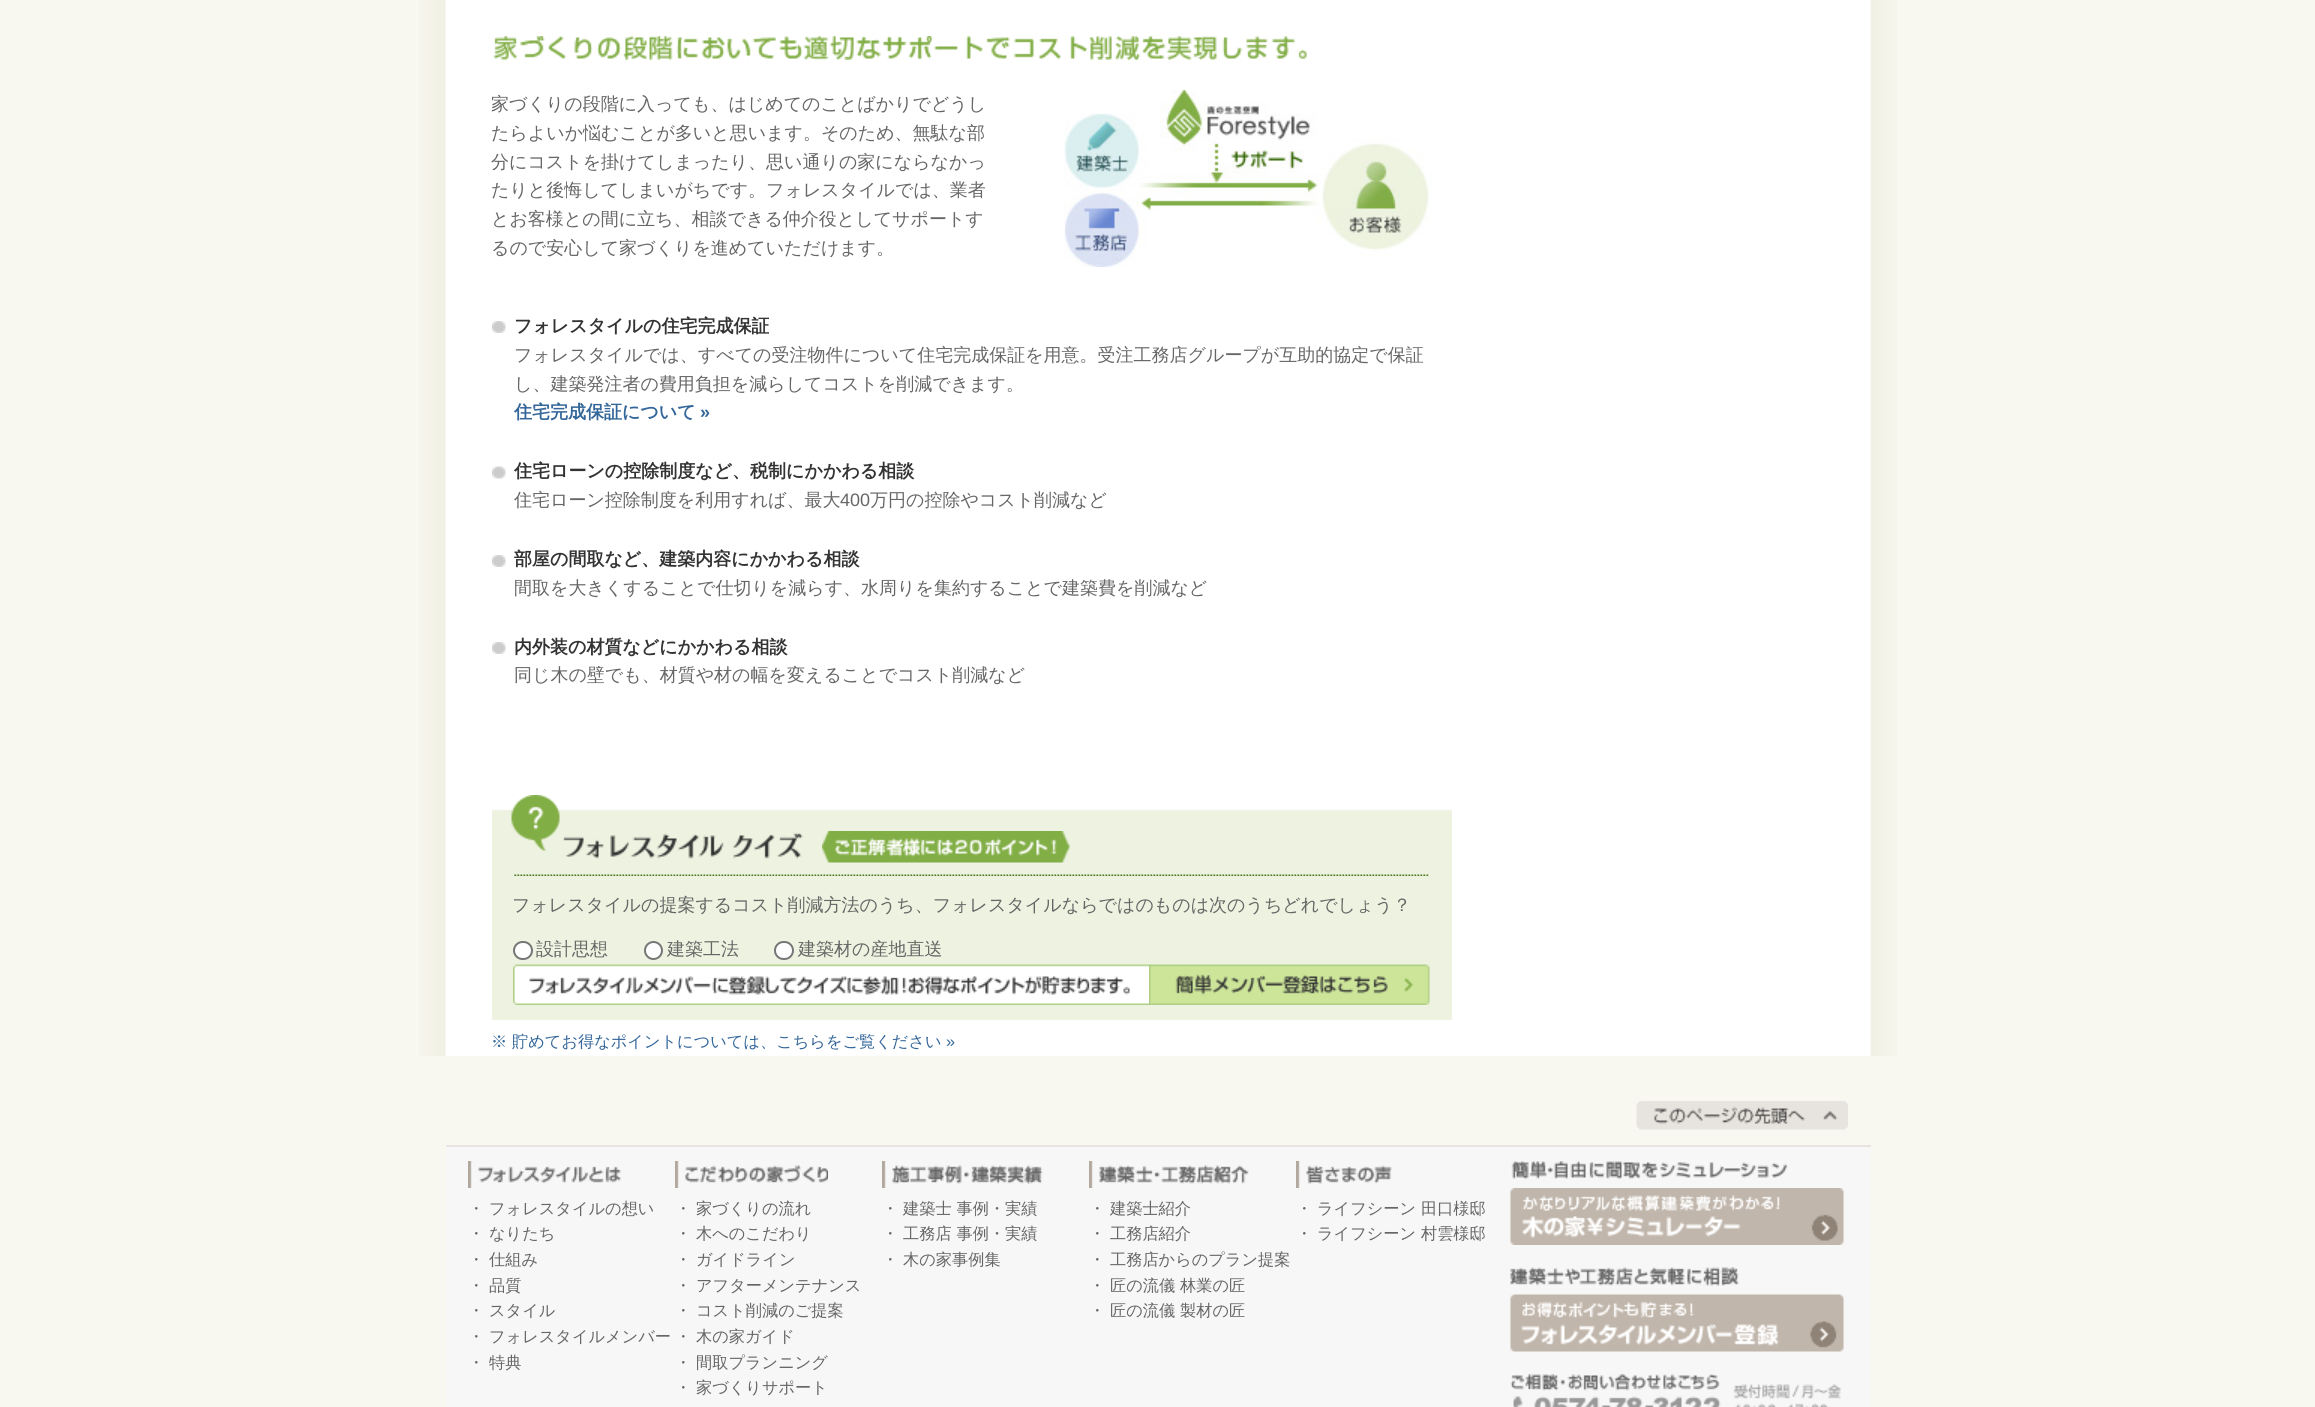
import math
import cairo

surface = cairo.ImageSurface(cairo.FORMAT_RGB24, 2315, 1407)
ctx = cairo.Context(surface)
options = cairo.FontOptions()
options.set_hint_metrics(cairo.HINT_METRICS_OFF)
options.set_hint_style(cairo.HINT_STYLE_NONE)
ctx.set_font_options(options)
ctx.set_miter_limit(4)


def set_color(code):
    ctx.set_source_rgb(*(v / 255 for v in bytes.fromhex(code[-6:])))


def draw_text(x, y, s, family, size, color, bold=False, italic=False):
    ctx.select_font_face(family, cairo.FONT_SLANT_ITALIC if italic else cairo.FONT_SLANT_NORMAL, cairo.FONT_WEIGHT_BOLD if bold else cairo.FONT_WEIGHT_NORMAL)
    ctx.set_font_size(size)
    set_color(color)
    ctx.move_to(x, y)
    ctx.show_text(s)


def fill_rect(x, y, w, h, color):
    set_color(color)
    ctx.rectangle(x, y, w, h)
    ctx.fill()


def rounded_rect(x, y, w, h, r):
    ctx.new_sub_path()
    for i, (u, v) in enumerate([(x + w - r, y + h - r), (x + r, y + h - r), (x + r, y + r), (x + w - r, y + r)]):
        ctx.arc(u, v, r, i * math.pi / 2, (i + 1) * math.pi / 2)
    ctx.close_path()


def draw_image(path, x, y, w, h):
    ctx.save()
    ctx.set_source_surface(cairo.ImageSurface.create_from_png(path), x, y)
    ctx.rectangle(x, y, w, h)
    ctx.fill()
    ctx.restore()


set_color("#f9f8f0")
ctx.paint()
draw_image("assets/img1.png", 419, 0, 1478, 1056)
draw_image("assets/img2.png", 493, 36, 814, 24)
draw_text(491, 110, "家づくりの段階に入っても、はじめてのことばかりでどうし", "WenQuanYi Zen Hei Medium", 18, "#666666")
draw_text(491, 139, "たらよいか悩むことが多いと思います。そのため、無駄な部", "WenQuanYi Zen Hei Medium", 18, "#666666")
draw_text(491, 168, "分にコストを掛けてしまったり、思い通りの家にならなかっ", "WenQuanYi Zen Hei Medium", 18, "#666666")
draw_text(491, 196, "たりと後悔してしまいがちです。フォレスタイルでは、業者", "WenQuanYi Zen Hei Medium", 18, "#666666")
draw_text(491, 225, "とお客様との間に立ち、相談できる仲介役としてサポートす", "WenQuanYi Zen Hei Medium", 18, "#666666")
draw_text(491, 254, "るので安心して家づくりを進めていただけます。", "WenQuanYi Zen Hei Medium", 18, "#666666")
draw_image("assets/img3.png", 1064, 90, 369, 177)
draw_image("assets/img4.png", 492, 321, 14, 12)
draw_text(514, 332, "フォレスタイルの住宅完成保証", "WenQuanYi Zen Hei", 18, "#333333", bold=True)
draw_text(514, 361, "フォレスタイルでは、すべての受注物件について住宅完成保証を用意。受注工務店グループが互助的協定で保証", "WenQuanYi Zen Hei Medium", 18, "#666666")
draw_text(514, 390, "し、建築発注者の費用負担を減らしてコストを削減できます。", "WenQuanYi Zen Hei Medium", 18, "#666666")
draw_text(514, 418, "住宅完成保証について", "WenQuanYi Zen Hei", 18, "#336699", bold=True)
draw_text(700, 418, "»", "Liberation Sans", 18, "#336699", bold=True)
draw_image("assets/img5.png", 492, 466, 14, 13)
draw_text(514, 477, "住宅ローンの控除制度など、税制にかかわる相談", "WenQuanYi Zen Hei", 18, "#333333", bold=True)
draw_text(514, 506, "住宅ローン控除制度を利用すれば、最大", "WenQuanYi Zen Hei Medium", 18, "#666666")
draw_text(840, 506, "400", "Liberation Sans", 18, "#666666")
draw_text(870, 506, "万円の控除やコスト削減など", "WenQuanYi Zen Hei Medium", 18, "#666666")
draw_image("assets/img4.png", 492, 555, 14, 12)
draw_text(514, 565, "部屋の間取など、建築内容にかかわる相談", "WenQuanYi Zen Hei", 18, "#333333", bold=True)
draw_text(514, 594, "間取を大きくすることで仕切りを減らす、水周りを集約することで建築費を削減など", "WenQuanYi Zen Hei Medium", 18, "#666666")
draw_image("assets/img4.png", 492, 642, 14, 12)
draw_text(514, 653, "内外装の材質などにかかわる相談", "WenQuanYi Zen Hei", 18, "#333333", bold=True)
draw_text(514, 681, "同じ木の壁でも、材質や材の幅を変えることでコスト削減など", "WenQuanYi Zen Hei Medium", 18, "#666666")
draw_image("assets/img6.png", 492, 795, 960, 81)
draw_image("assets/img7.png", 822, 831, 248, 32)
fill_rect(492, 876, 960, 144, "#edf3e0")
draw_text(512, 911, "フォレスタイルの提案するコスト削減方法のうち、フォレスタイルならではのものは次のうちどれでしょう？", "WenQuanYi Zen Hei Medium", 18, "#666666")
set_color("#ffffff")
rounded_rect(514, 942, 18, 17, 8.5)
ctx.fill_preserve()
set_color("#767676")
ctx.stroke()
draw_text(536, 955, "設計思想", "WenQuanYi Zen Hei Medium", 18, "#666666")
set_color("#ffffff")
ctx.new_path()
ctx.arc(653.5, 950.5, 8.5, 0, 2 * math.pi)
ctx.fill_preserve()
set_color("#767676")
ctx.stroke()
draw_text(667, 955, "建築工法", "WenQuanYi Zen Hei Medium", 18, "#666666")
set_color("#ffffff")
rounded_rect(775, 942, 18, 17, 8.5)
ctx.fill_preserve()
set_color("#767676")
ctx.stroke()
draw_text(798, 955, "建築材の産地直送", "WenQuanYi Zen Hei Medium", 18, "#666666")
draw_image("assets/img8.png", 513, 964, 636, 41)
draw_image("assets/img9.png", 1149, 964, 281, 41)
draw_text(491, 1047, "※ 貯めてお得なポイントについては、こちらをご覧ください", "WenQuanYi Zen Hei Medium", 16.2, "#336699")
draw_text(946, 1047, "»", "Liberation Sans", 16.2, "#336699")
draw_image("assets/img10.png", 1636, 1101, 212, 29)
fill_rect(446, 1147, 1425, 260, "#f7f7f7")
fill_rect(446, 1145, 1425, 2, "#e7e3de")
draw_image("assets/img11.png", 468, 1161, 153, 27)
draw_text(468, 1214, "・", "WenQuanYi Zen Hei Medium", 16.2, "#666666")
draw_text(489, 1214, "フォレスタイルの想い", "WenQuanYi Zen Hei Medium", 16.2, "#666666")
draw_text(468, 1239, "・", "WenQuanYi Zen Hei Medium", 16.2, "#666666")
draw_text(489, 1239, "なりたち", "WenQuanYi Zen Hei Medium", 16.2, "#666666")
draw_text(468, 1265, "・", "WenQuanYi Zen Hei Medium", 16.2, "#666666")
draw_text(489, 1265, "仕組み", "WenQuanYi Zen Hei Medium", 16.2, "#666666")
draw_text(468, 1291, "・", "WenQuanYi Zen Hei Medium", 16.2, "#666666")
draw_text(489, 1291, "品質", "WenQuanYi Zen Hei Medium", 16.2, "#666666")
draw_text(468, 1316, "・", "WenQuanYi Zen Hei Medium", 16.2, "#666666")
draw_text(489, 1316, "スタイル", "WenQuanYi Zen Hei Medium", 16.2, "#666666")
draw_text(468, 1342, "・", "WenQuanYi Zen Hei Medium", 16.2, "#666666")
draw_text(489, 1342, "フォレスタイルメンバー", "WenQuanYi Zen Hei Medium", 16.2, "#666666")
draw_text(468, 1368, "・", "WenQuanYi Zen Hei Medium", 16.2, "#666666")
draw_text(489, 1368, "特典", "WenQuanYi Zen Hei Medium", 16.2, "#666666")
draw_image("assets/img12.png", 675, 1161, 153, 27)
draw_text(675, 1214, "・", "WenQuanYi Zen Hei Medium", 16.2, "#666666")
draw_text(696, 1214, "家づくりの流れ", "WenQuanYi Zen Hei Medium", 16.2, "#666666")
draw_text(675, 1239, "・", "WenQuanYi Zen Hei Medium", 16.2, "#666666")
draw_text(696, 1239, "木へのこだわり", "WenQuanYi Zen Hei Medium", 16.2, "#666666")
draw_text(675, 1265, "・", "WenQuanYi Zen Hei Medium", 16.2, "#666666")
draw_text(696, 1265, "ガイドライン", "WenQuanYi Zen Hei Medium", 16.2, "#666666")
draw_text(675, 1291, "・", "WenQuanYi Zen Hei Medium", 16.2, "#666666")
draw_text(696, 1291, "アフターメンテナンス", "WenQuanYi Zen Hei Medium", 16.2, "#666666")
draw_text(675, 1316, "・", "WenQuanYi Zen Hei Medium", 16.2, "#666666")
draw_text(696, 1316, "コスト削減のご提案", "WenQuanYi Zen Hei Medium", 16.2, "#666666")
draw_text(675, 1342, "・", "WenQuanYi Zen Hei Medium", 16.2, "#666666")
draw_text(696, 1342, "木の家ガイド", "WenQuanYi Zen Hei Medium", 16.2, "#666666")
draw_text(675, 1368, "・", "WenQuanYi Zen Hei Medium", 16.2, "#666666")
draw_text(696, 1368, "間取プランニング", "WenQuanYi Zen Hei Medium", 16.2, "#666666")
draw_text(675, 1393, "・", "WenQuanYi Zen Hei Medium", 16.2, "#666666")
draw_text(696, 1393, "家づくりサポート", "WenQuanYi Zen Hei Medium", 16.2, "#666666")
draw_image("assets/img13.png", 882, 1161, 161, 27)
draw_text(882, 1214, "・", "WenQuanYi Zen Hei Medium", 16.2, "#666666")
draw_text(903, 1214, "建築士 事例・実績", "WenQuanYi Zen Hei Medium", 16.2, "#666666")
draw_text(882, 1239, "・", "WenQuanYi Zen Hei Medium", 16.2, "#666666")
draw_text(903, 1239, "工務店 事例・実績", "WenQuanYi Zen Hei Medium", 16.2, "#666666")
draw_text(882, 1265, "・", "WenQuanYi Zen Hei Medium", 16.2, "#666666")
draw_text(903, 1265, "木の家事例集", "WenQuanYi Zen Hei Medium", 16.2, "#666666")
draw_image("assets/img14.png", 1089, 1161, 160, 27)
draw_text(1089, 1214, "・", "WenQuanYi Zen Hei Medium", 16.2, "#666666")
draw_text(1110, 1214, "建築士紹介", "WenQuanYi Zen Hei Medium", 16.2, "#666666")
draw_text(1089, 1239, "・", "WenQuanYi Zen Hei Medium", 16.2, "#666666")
draw_text(1110, 1239, "工務店紹介", "WenQuanYi Zen Hei Medium", 16.2, "#666666")
draw_text(1089, 1265, "・", "WenQuanYi Zen Hei Medium", 16.2, "#666666")
draw_text(1110, 1265, "工務店からのプラン提案", "WenQuanYi Zen Hei Medium", 16.2, "#666666")
draw_text(1089, 1291, "・", "WenQuanYi Zen Hei Medium", 16.2, "#666666")
draw_text(1110, 1291, "匠の流儀 林業の匠", "WenQuanYi Zen Hei Medium", 16.2, "#666666")
draw_text(1089, 1316, "・", "WenQuanYi Zen Hei Medium", 16.2, "#666666")
draw_text(1110, 1316, "匠の流儀 製材の匠", "WenQuanYi Zen Hei Medium", 16.2, "#666666")
draw_image("assets/img15.png", 1296, 1161, 96, 27)
draw_text(1296, 1214, "・", "WenQuanYi Zen Hei Medium", 16.2, "#666666")
draw_text(1317, 1214, "ライフシーン 田口様邸", "WenQuanYi Zen Hei Medium", 16.2, "#666666")
draw_text(1296, 1239, "・", "WenQuanYi Zen Hei Medium", 16.2, "#666666")
draw_text(1317, 1239, "ライフシーン 村雲様邸", "WenQuanYi Zen Hei Medium", 16.2, "#666666")
draw_image("assets/img16.png", 1511, 1161, 277, 18)
draw_image("assets/img17.png", 1510, 1188, 334, 57)
draw_image("assets/img18.png", 1510, 1267, 229, 19)
draw_image("assets/img19.png", 1510, 1294, 334, 58)
draw_image("assets/img20.png", 1510, 1374, 331, 33)
surface.write_to_png("output.png")
